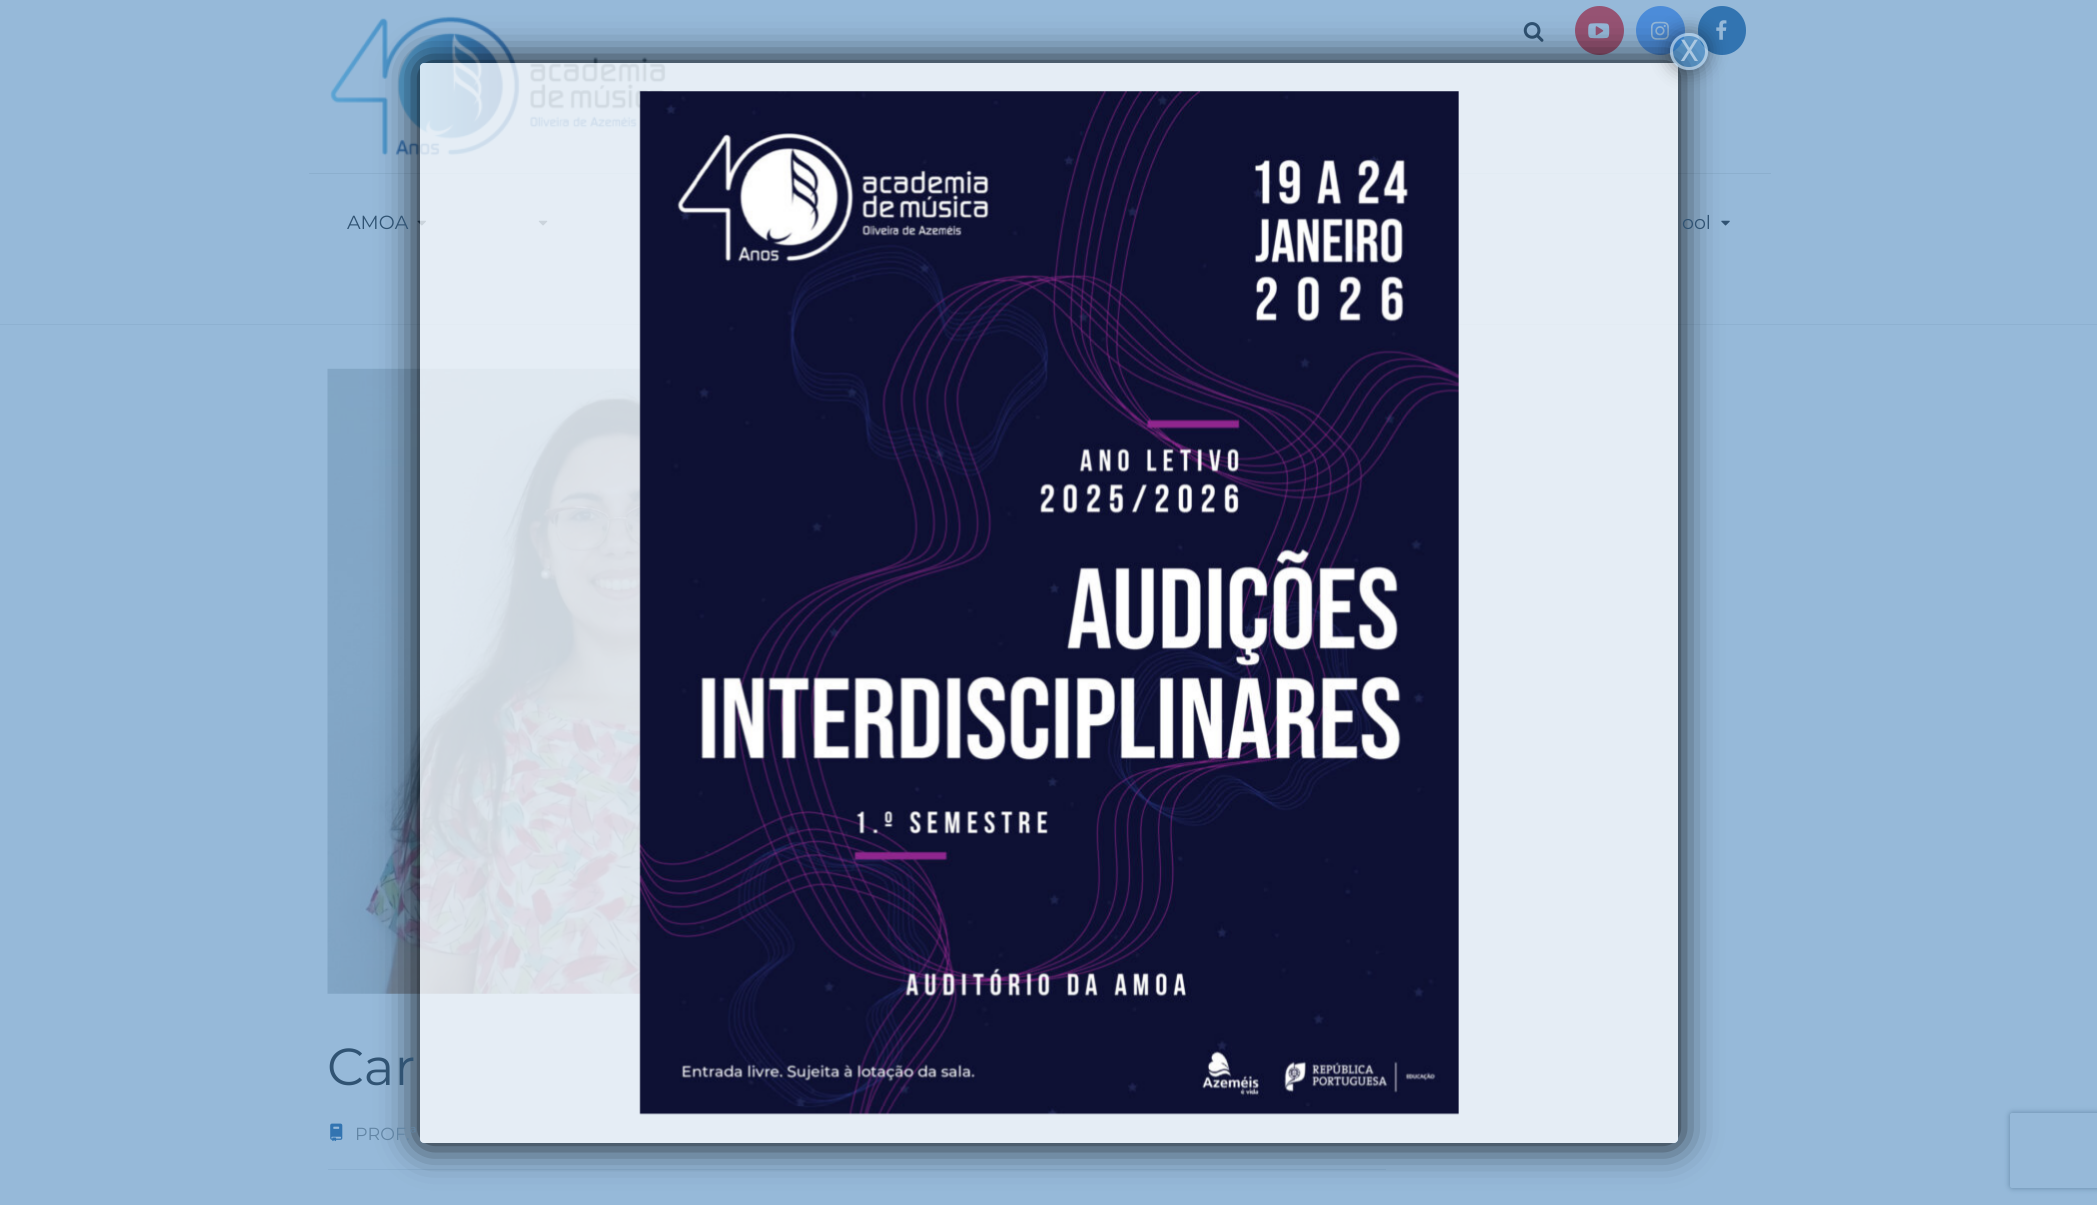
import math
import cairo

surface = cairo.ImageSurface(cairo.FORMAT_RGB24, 2097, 1205)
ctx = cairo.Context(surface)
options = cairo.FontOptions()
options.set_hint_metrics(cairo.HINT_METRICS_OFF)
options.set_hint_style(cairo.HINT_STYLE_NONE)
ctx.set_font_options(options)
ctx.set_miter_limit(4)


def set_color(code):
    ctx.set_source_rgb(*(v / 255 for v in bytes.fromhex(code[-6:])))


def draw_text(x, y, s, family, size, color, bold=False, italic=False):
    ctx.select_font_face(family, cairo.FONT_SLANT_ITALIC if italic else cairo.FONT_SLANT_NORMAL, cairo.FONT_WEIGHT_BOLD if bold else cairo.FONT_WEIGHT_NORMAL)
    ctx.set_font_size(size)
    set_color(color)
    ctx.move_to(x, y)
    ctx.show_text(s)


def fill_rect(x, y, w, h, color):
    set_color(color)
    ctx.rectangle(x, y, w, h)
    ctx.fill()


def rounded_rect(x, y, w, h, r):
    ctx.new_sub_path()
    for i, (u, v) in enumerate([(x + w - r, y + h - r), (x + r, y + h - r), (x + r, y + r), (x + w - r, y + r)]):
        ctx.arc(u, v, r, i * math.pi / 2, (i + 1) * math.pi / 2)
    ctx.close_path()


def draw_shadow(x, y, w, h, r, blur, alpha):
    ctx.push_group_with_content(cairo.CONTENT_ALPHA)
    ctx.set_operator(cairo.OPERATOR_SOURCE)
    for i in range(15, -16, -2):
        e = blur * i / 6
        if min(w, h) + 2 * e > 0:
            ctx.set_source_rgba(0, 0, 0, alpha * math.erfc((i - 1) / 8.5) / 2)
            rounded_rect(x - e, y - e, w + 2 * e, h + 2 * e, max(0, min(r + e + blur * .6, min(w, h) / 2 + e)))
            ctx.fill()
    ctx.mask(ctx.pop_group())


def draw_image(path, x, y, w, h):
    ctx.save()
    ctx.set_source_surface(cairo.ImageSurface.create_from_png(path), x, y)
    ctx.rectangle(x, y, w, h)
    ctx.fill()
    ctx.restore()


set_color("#96b9d9")
ctx.paint()
fill_rect(0, 324, 2097, 1, "#8eb1d1")
fill_rect(309, 173, 1462, 1, "#8cafce")
draw_image("assets/img2.png", 330, 16, 336, 140)
draw_image("assets/img3.png", 1523, 22, 21, 20)
set_color("#965373")
ctx.arc(1599.5, 30.5, 24.5, 0, 2 * math.pi)
ctx.fill()
draw_image("assets/img4.png", 1588, 23, 22, 16)
set_color("#4c8cd9")
ctx.arc(1660.5, 30.5, 24.5, 0, 2 * math.pi)
ctx.fill()
draw_image("assets/img5.png", 1650, 21, 19, 19)
set_color("#3274b1")
rounded_rect(1698, 6, 48, 49, 24)
ctx.fill()
draw_image("assets/img6.png", 1716, 20, 11, 20)
draw_image("assets/img7.png", 417, 220, 9, 6)
draw_image("assets/img8.png", 538, 220, 10, 6)
draw_image("assets/img9.png", 1721, 220, 9, 6)
draw_image("assets/img10.png", 327, 368, 314, 626)
fill_rect(328, 1169, 1058, 1, "#8cb0d1")
ctx.save()
ctx.set_fill_rule(cairo.FILL_RULE_EVEN_ODD)
ctx.new_path()
ctx.move_to(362, 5)
ctx.line_to(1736, 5)
ctx.line_to(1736, 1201)
ctx.line_to(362, 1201)
ctx.close_path()
ctx.move_to(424, 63)
ctx.line_to(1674, 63)
ctx.curve_to(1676, 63, 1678, 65, 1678, 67)
ctx.line_to(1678, 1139)
ctx.curve_to(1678, 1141, 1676, 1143, 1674, 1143)
ctx.line_to(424, 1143)
ctx.curve_to(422, 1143, 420, 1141, 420, 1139)
ctx.line_to(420, 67)
ctx.curve_to(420, 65, 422, 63, 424, 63)
ctx.close_path()
ctx.clip()
set_color("#020202")
draw_shadow(420, 63, 1258, 1080, 4, 19, 1)
ctx.restore()
ctx.set_source_rgba(1, 1, 1, 0.75)
rounded_rect(420, 63, 1258, 1080, 4)
ctx.fill()
ctx.save()
ctx.set_fill_rule(cairo.FILL_RULE_EVEN_ODD)
ctx.new_path()
ctx.move_to(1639, 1)
ctx.line_to(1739, 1)
ctx.line_to(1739, 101)
ctx.line_to(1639, 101)
ctx.close_path()
ctx.move_to(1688.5, 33)
ctx.line_to(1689.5, 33)
ctx.curve_to(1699.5, 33, 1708, 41.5, 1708, 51.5)
ctx.curve_to(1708, 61.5, 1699.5, 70, 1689.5, 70)
ctx.line_to(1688.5, 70)
ctx.curve_to(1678.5, 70, 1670, 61.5, 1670, 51.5)
ctx.curve_to(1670, 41.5, 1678.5, 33, 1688.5, 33)
ctx.close_path()
ctx.clip()
set_color("#020202")
draw_shadow(1669, 31, 40, 40, 20, 9.5, 0.37)
ctx.restore()
ctx.set_source_rgba(0.157, 0.471, 0.749, 0.49)
rounded_rect(1670, 33, 38, 37, 18.5)
ctx.fill()
rounded_rect(1671.5, 34.5, 35, 34, 17)
ctx.set_source_rgba(1, 1, 1, 0.49)
ctx.set_line_width(3)
ctx.stroke()
draw_text(1680, 61, "X", "Roboto", 30, "#abc8e1")
draw_image("assets/img1.png", 639, 91, 820, 1024)
draw_text(347, 229, "AMOA", "Montserrat", 19, "#305373")
draw_text(1682, 229, "ool", "Montserrat", 19, "#305373")
draw_text(327, 1085, "Car", "Montserrat", 52, "#305373")
draw_image("assets/img11.png", 330, 1123, 13, 19)
draw_text(355, 1140, "PROF.ª", "Montserrat", 17.5, "#6285a4")
ctx.save()
ctx.set_fill_rule(cairo.FILL_RULE_EVEN_ODD)
ctx.new_path()
ctx.move_to(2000, 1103)
ctx.line_to(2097, 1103)
ctx.line_to(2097, 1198)
ctx.line_to(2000, 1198)
ctx.close_path()
ctx.move_to(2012.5, 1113)
ctx.line_to(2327.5, 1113)
ctx.curve_to(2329, 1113, 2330, 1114, 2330, 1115.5)
ctx.line_to(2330, 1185.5)
ctx.curve_to(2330, 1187, 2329, 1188, 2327.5, 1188)
ctx.line_to(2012.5, 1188)
ctx.curve_to(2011, 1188, 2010, 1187, 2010, 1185.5)
ctx.line_to(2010, 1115.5)
ctx.curve_to(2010, 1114, 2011, 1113, 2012.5, 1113)
ctx.close_path()
ctx.clip()
set_color("#6387a6")
draw_shadow(2010, 1113, 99, 75, 2.5, 3, 1)
ctx.restore()
surface.write_to_png("output.png")
